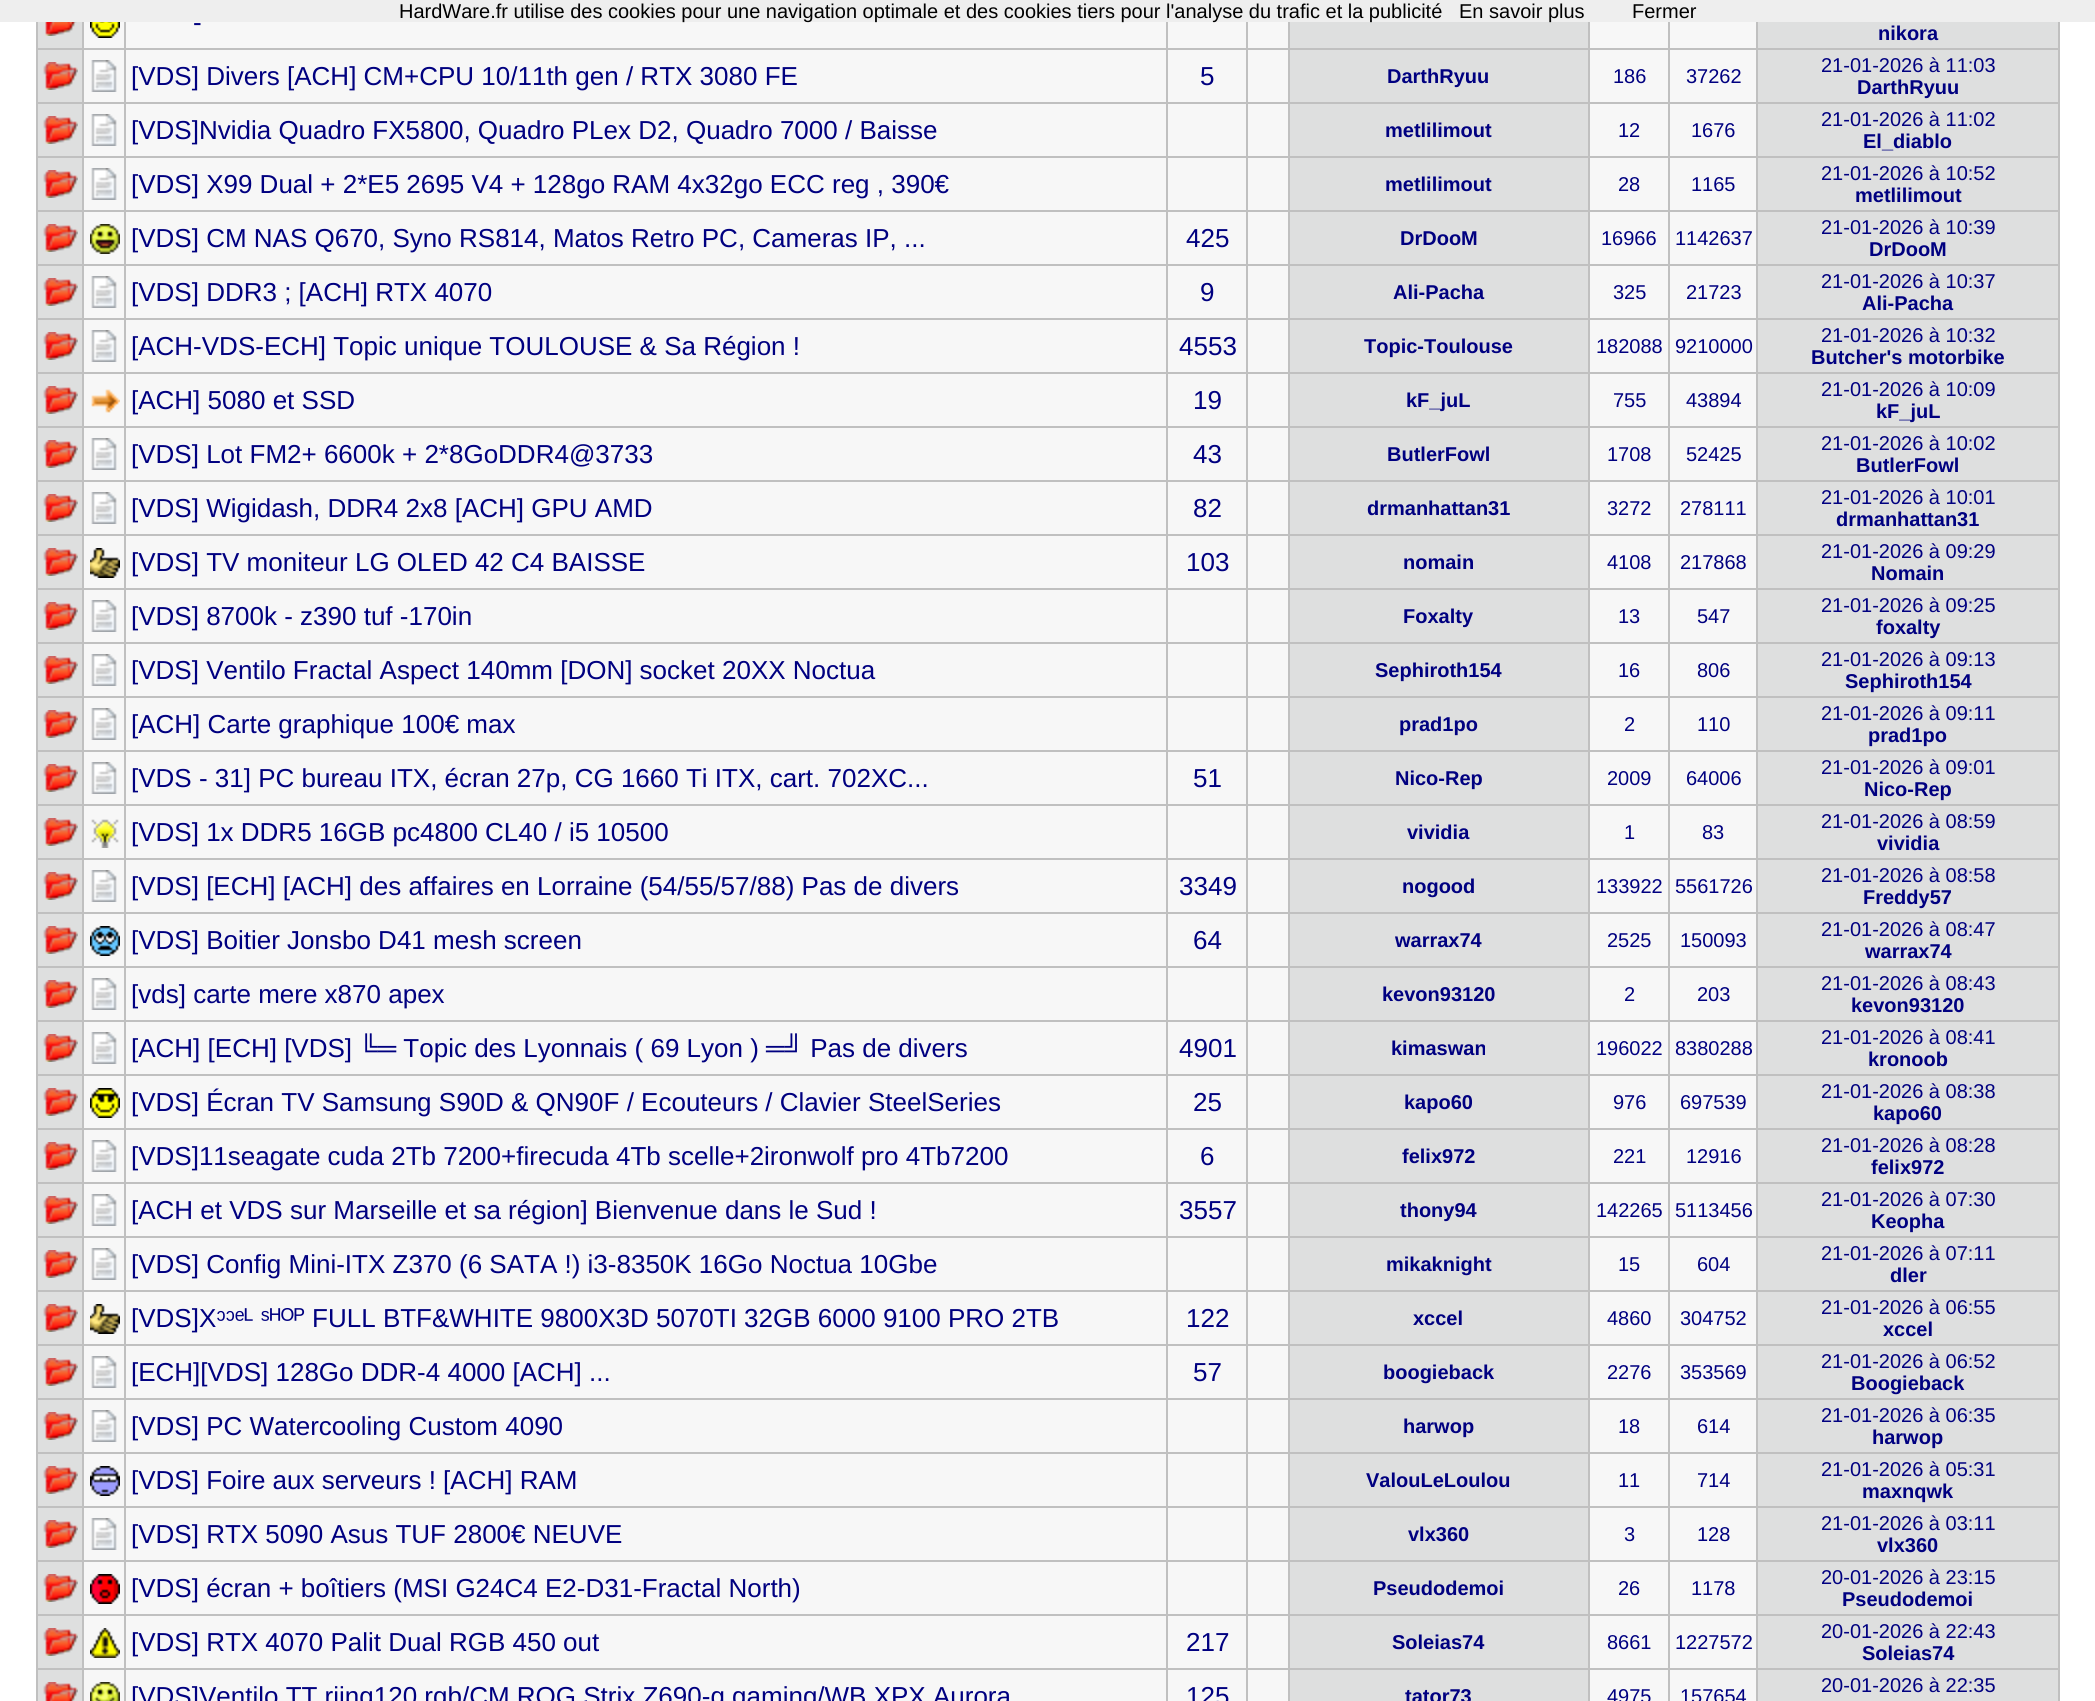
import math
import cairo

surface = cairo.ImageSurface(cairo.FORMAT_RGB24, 2095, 1701)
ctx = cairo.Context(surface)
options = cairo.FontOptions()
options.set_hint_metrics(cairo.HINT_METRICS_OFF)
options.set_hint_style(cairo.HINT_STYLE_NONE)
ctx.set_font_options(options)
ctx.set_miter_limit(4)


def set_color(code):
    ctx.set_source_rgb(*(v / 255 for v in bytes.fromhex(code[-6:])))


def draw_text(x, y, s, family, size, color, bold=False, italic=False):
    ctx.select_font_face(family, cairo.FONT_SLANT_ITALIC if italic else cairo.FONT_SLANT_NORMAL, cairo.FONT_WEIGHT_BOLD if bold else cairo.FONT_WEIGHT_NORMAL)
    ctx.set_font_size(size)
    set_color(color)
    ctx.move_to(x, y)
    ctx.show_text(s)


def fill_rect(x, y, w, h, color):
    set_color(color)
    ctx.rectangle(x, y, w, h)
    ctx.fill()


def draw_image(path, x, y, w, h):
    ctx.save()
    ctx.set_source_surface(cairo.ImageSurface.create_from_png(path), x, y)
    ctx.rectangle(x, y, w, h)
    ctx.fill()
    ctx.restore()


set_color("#ffffff")
ctx.paint()
fill_rect(0, 0, 2095, 22, "#eeeeee")
fill_rect(84, 22, 1672, 26, "#f7f7f7")
fill_rect(36, 48, 2022, 2, "#c0c0c0")
fill_rect(1166, 22, 2, 28, "#c0c0c0")
fill_rect(1246, 22, 2, 28, "#c0c0c0")
fill_rect(1290, 22, 298, 26, "#dedfdf")
fill_rect(1288, 22, 2, 28, "#c0c0c0")
draw_text(399, 18, "HardWare.fr utilise des cookies pour une navigation optimale et des cookies tiers pour l'analyse du trafic et la publicité", "Liberation Sans", 20, "#000000")
draw_text(1459, 18, "En savoir plus", "Liberation Sans", 20, "#000000")
draw_text(1632, 18, "Fermer", "Liberation Sans", 20, "#000000")
fill_rect(2058, 22, 2, 1679, "#c0c0c0")
fill_rect(38, 22, 44, 26, "#dedfdf")
fill_rect(36, 22, 2, 28, "#c0c0c0")
draw_image("assets/img1.png", 45, 22, 32, 14)
fill_rect(82, 22, 2, 28, "#c0c0c0")
draw_image("assets/img2.png", 90, 22, 30, 16)
fill_rect(124, 22, 2, 28, "#c0c0c0")
draw_text(193, 31, "-", "Liberation Sans", 26, "#000080")
fill_rect(1588, 22, 2, 28, "#c0c0c0")
fill_rect(1668, 22, 2, 28, "#c0c0c0")
fill_rect(1758, 22, 300, 26, "#dedfdf")
fill_rect(1756, 22, 2, 28, "#c0c0c0")
draw_text(1878, 40, "nikora", "Liberation Sans", 20, "#000080", bold=True)
fill_rect(84, 50, 1672, 52, "#f7f7f7")
fill_rect(38, 50, 44, 52, "#dedfdf")
fill_rect(36, 102, 2022, 2, "#c0c0c0")
fill_rect(36, 50, 2, 54, "#c0c0c0")
draw_image("assets/img3.png", 43, 62, 35, 28)
fill_rect(82, 50, 2, 54, "#c0c0c0")
draw_image("assets/img4.png", 91, 60, 26, 32)
fill_rect(124, 50, 2, 54, "#c0c0c0")
draw_text(131, 85, "[VDS] Divers [ACH] CM+CPU 10/11th gen / RTX 3080 FE", "Liberation Sans", 26, "#000080")
fill_rect(1166, 50, 2, 54, "#c0c0c0")
draw_text(1200, 85, "5", "Liberation Sans", 26, "#000080")
fill_rect(1246, 50, 2, 54, "#c0c0c0")
fill_rect(1290, 50, 298, 52, "#dedfdf")
fill_rect(1288, 50, 2, 54, "#c0c0c0")
draw_text(1387, 83, "DarthRyuu", "Liberation Sans", 20, "#000080", bold=True)
fill_rect(1588, 50, 2, 54, "#c0c0c0")
draw_text(1613, 83, "186", "Liberation Sans", 20, "#000080")
fill_rect(1668, 50, 2, 54, "#c0c0c0")
draw_text(1686, 83, "37262", "Liberation Sans", 20, "#000080")
fill_rect(1758, 50, 300, 52, "#dedfdf")
fill_rect(1756, 50, 2, 54, "#c0c0c0")
draw_text(1821, 72, "21-01-2026 à 11:03", "Liberation Sans", 20, "#000080")
draw_text(1857, 94, "DarthRyuu", "Liberation Sans", 20, "#000080", bold=True)
fill_rect(84, 104, 1672, 52, "#f7f7f7")
fill_rect(38, 104, 44, 52, "#dedfdf")
fill_rect(36, 156, 2022, 2, "#c0c0c0")
fill_rect(36, 104, 2, 54, "#c0c0c0")
draw_image("assets/img3.png", 43, 116, 35, 28)
fill_rect(82, 104, 2, 54, "#c0c0c0")
draw_image("assets/img4.png", 91, 114, 26, 32)
fill_rect(124, 104, 2, 54, "#c0c0c0")
draw_text(131, 139, "[VDS]Nvidia Quadro FX5800, Quadro PLex D2, Quadro 7000 / Baisse", "Liberation Sans", 26, "#000080")
fill_rect(1166, 104, 2, 54, "#c0c0c0")
fill_rect(1246, 104, 2, 54, "#c0c0c0")
fill_rect(1290, 104, 298, 52, "#dedfdf")
fill_rect(1288, 104, 2, 54, "#c0c0c0")
draw_text(1385, 137, "metlilimout", "Liberation Sans", 20, "#000080", bold=True)
fill_rect(1588, 104, 2, 54, "#c0c0c0")
draw_text(1618, 137, "12", "Liberation Sans", 20, "#000080")
fill_rect(1668, 104, 2, 54, "#c0c0c0")
draw_text(1691, 137, "1676", "Liberation Sans", 20, "#000080")
fill_rect(1758, 104, 300, 52, "#dedfdf")
fill_rect(1756, 104, 2, 54, "#c0c0c0")
draw_text(1821, 126, "21-01-2026 à 11:02", "Liberation Sans", 20, "#000080")
draw_text(1863, 148, "El_diablo", "Liberation Sans", 20, "#000080", bold=True)
fill_rect(84, 158, 1672, 52, "#f7f7f7")
fill_rect(38, 158, 44, 52, "#dedfdf")
fill_rect(36, 210, 2022, 2, "#c0c0c0")
fill_rect(36, 158, 2, 54, "#c0c0c0")
draw_image("assets/img3.png", 43, 170, 35, 28)
fill_rect(82, 158, 2, 54, "#c0c0c0")
draw_image("assets/img4.png", 91, 168, 26, 32)
fill_rect(124, 158, 2, 54, "#c0c0c0")
draw_text(131, 193, "[VDS] X99 Dual + 2*E5 2695 V4 + 128go RAM 4x32go ECC reg , 390€", "Liberation Sans", 26, "#000080")
fill_rect(1166, 158, 2, 54, "#c0c0c0")
fill_rect(1246, 158, 2, 54, "#c0c0c0")
fill_rect(1290, 158, 298, 52, "#dedfdf")
fill_rect(1288, 158, 2, 54, "#c0c0c0")
draw_text(1385, 191, "metlilimout", "Liberation Sans", 20, "#000080", bold=True)
fill_rect(1588, 158, 2, 54, "#c0c0c0")
draw_text(1618, 191, "28", "Liberation Sans", 20, "#000080")
fill_rect(1668, 158, 2, 54, "#c0c0c0")
draw_text(1691, 191, "1165", "Liberation Sans", 20, "#000080")
fill_rect(1758, 158, 300, 52, "#dedfdf")
fill_rect(1756, 158, 2, 54, "#c0c0c0")
draw_text(1821, 180, "21-01-2026 à 10:52", "Liberation Sans", 20, "#000080")
draw_text(1855, 202, "metlilimout", "Liberation Sans", 20, "#000080", bold=True)
fill_rect(84, 212, 1672, 52, "#f7f7f7")
fill_rect(38, 212, 44, 52, "#dedfdf")
fill_rect(36, 264, 2022, 2, "#c0c0c0")
fill_rect(36, 212, 2, 54, "#c0c0c0")
draw_image("assets/img3.png", 43, 224, 35, 28)
fill_rect(82, 212, 2, 54, "#c0c0c0")
draw_image("assets/img5.png", 90, 224, 30, 30)
fill_rect(124, 212, 2, 54, "#c0c0c0")
draw_text(131, 247, "[VDS] CM NAS Q670, Syno RS814, Matos Retro PC, Cameras IP, ...", "Liberation Sans", 26, "#000080")
fill_rect(1166, 212, 2, 54, "#c0c0c0")
draw_text(1186, 247, "425", "Liberation Sans", 26, "#000080")
fill_rect(1246, 212, 2, 54, "#c0c0c0")
fill_rect(1290, 212, 298, 52, "#dedfdf")
fill_rect(1288, 212, 2, 54, "#c0c0c0")
draw_text(1400, 245, "DrDooM", "Liberation Sans", 20, "#000080", bold=True)
fill_rect(1588, 212, 2, 54, "#c0c0c0")
draw_text(1601, 245, "16966", "Liberation Sans", 20, "#000080")
fill_rect(1668, 212, 2, 54, "#c0c0c0")
draw_text(1675, 245, "1142637", "Liberation Sans", 20, "#000080")
fill_rect(1758, 212, 300, 52, "#dedfdf")
fill_rect(1756, 212, 2, 54, "#c0c0c0")
draw_text(1821, 234, "21-01-2026 à 10:39", "Liberation Sans", 20, "#000080")
draw_text(1869, 256, "DrDooM", "Liberation Sans", 20, "#000080", bold=True)
fill_rect(84, 266, 1672, 52, "#f7f7f7")
fill_rect(38, 266, 44, 52, "#dedfdf")
fill_rect(36, 318, 2022, 2, "#c0c0c0")
fill_rect(36, 266, 2, 54, "#c0c0c0")
draw_image("assets/img3.png", 43, 278, 35, 28)
fill_rect(82, 266, 2, 54, "#c0c0c0")
draw_image("assets/img4.png", 91, 276, 26, 32)
fill_rect(124, 266, 2, 54, "#c0c0c0")
draw_text(131, 301, "[VDS] DDR3 ; [ACH] RTX 4070", "Liberation Sans", 26, "#000080")
fill_rect(1166, 266, 2, 54, "#c0c0c0")
draw_text(1200, 301, "9", "Liberation Sans", 26, "#000080")
fill_rect(1246, 266, 2, 54, "#c0c0c0")
fill_rect(1290, 266, 298, 52, "#dedfdf")
fill_rect(1288, 266, 2, 54, "#c0c0c0")
draw_text(1393, 299, "Ali-Pacha", "Liberation Sans", 20, "#000080", bold=True)
fill_rect(1588, 266, 2, 54, "#c0c0c0")
draw_text(1613, 299, "325", "Liberation Sans", 20, "#000080")
fill_rect(1668, 266, 2, 54, "#c0c0c0")
draw_text(1686, 299, "21723", "Liberation Sans", 20, "#000080")
fill_rect(1758, 266, 300, 52, "#dedfdf")
fill_rect(1756, 266, 2, 54, "#c0c0c0")
draw_text(1821, 288, "21-01-2026 à 10:37", "Liberation Sans", 20, "#000080")
draw_text(1862, 310, "Ali-Pacha", "Liberation Sans", 20, "#000080", bold=True)
fill_rect(84, 320, 1672, 52, "#f7f7f7")
fill_rect(38, 320, 44, 52, "#dedfdf")
fill_rect(36, 372, 2022, 2, "#c0c0c0")
fill_rect(36, 320, 2, 54, "#c0c0c0")
draw_image("assets/img3.png", 43, 332, 35, 28)
fill_rect(82, 320, 2, 54, "#c0c0c0")
draw_image("assets/img4.png", 91, 330, 26, 32)
fill_rect(124, 320, 2, 54, "#c0c0c0")
draw_text(131, 355, "[ACH-VDS-ECH] Topic unique TOULOUSE & Sa Région !", "Liberation Sans", 26, "#000080")
fill_rect(1166, 320, 2, 54, "#c0c0c0")
draw_text(1179, 355, "4553", "Liberation Sans", 26, "#000080")
fill_rect(1246, 320, 2, 54, "#c0c0c0")
fill_rect(1290, 320, 298, 52, "#dedfdf")
fill_rect(1288, 320, 2, 54, "#c0c0c0")
draw_text(1364, 353, "Topic-Toulouse", "Liberation Sans", 20, "#000080", bold=True)
fill_rect(1588, 320, 2, 54, "#c0c0c0")
draw_text(1596, 353, "182088", "Liberation Sans", 20, "#000080")
fill_rect(1668, 320, 2, 54, "#c0c0c0")
draw_text(1675, 353, "9210000", "Liberation Sans", 20, "#000080")
fill_rect(1758, 320, 300, 52, "#dedfdf")
fill_rect(1756, 320, 2, 54, "#c0c0c0")
draw_text(1821, 342, "21-01-2026 à 10:32", "Liberation Sans", 20, "#000080")
draw_text(1811, 364, "Butcher's motorbike", "Liberation Sans", 20, "#000080", bold=True)
fill_rect(84, 374, 1672, 52, "#f7f7f7")
fill_rect(38, 374, 44, 52, "#dedfdf")
fill_rect(36, 426, 2022, 2, "#c0c0c0")
fill_rect(36, 374, 2, 54, "#c0c0c0")
draw_image("assets/img3.png", 43, 386, 35, 28)
fill_rect(82, 374, 2, 54, "#c0c0c0")
draw_image("assets/img6.png", 91, 389, 29, 24)
fill_rect(124, 374, 2, 54, "#c0c0c0")
draw_text(131, 409, "[ACH] 5080 et SSD", "Liberation Sans", 26, "#000080")
fill_rect(1166, 374, 2, 54, "#c0c0c0")
draw_text(1193, 409, "19", "Liberation Sans", 26, "#000080")
fill_rect(1246, 374, 2, 54, "#c0c0c0")
fill_rect(1290, 374, 298, 52, "#dedfdf")
fill_rect(1288, 374, 2, 54, "#c0c0c0")
draw_text(1406, 407, "kF_juL", "Liberation Sans", 20, "#000080", bold=True)
fill_rect(1588, 374, 2, 54, "#c0c0c0")
draw_text(1613, 407, "755", "Liberation Sans", 20, "#000080")
fill_rect(1668, 374, 2, 54, "#c0c0c0")
draw_text(1686, 407, "43894", "Liberation Sans", 20, "#000080")
fill_rect(1758, 374, 300, 52, "#dedfdf")
fill_rect(1756, 374, 2, 54, "#c0c0c0")
draw_text(1821, 396, "21-01-2026 à 10:09", "Liberation Sans", 20, "#000080")
draw_text(1876, 418, "kF_juL", "Liberation Sans", 20, "#000080", bold=True)
fill_rect(84, 428, 1672, 52, "#f7f7f7")
fill_rect(38, 428, 44, 52, "#dedfdf")
fill_rect(36, 480, 2022, 2, "#c0c0c0")
fill_rect(36, 428, 2, 54, "#c0c0c0")
draw_image("assets/img3.png", 43, 440, 35, 28)
fill_rect(82, 428, 2, 54, "#c0c0c0")
draw_image("assets/img4.png", 91, 438, 26, 32)
fill_rect(124, 428, 2, 54, "#c0c0c0")
draw_text(131, 463, "[VDS] Lot FM2+ 6600k + 2*8GoDDR4@3733", "Liberation Sans", 26, "#000080")
fill_rect(1166, 428, 2, 54, "#c0c0c0")
draw_text(1193, 463, "43", "Liberation Sans", 26, "#000080")
fill_rect(1246, 428, 2, 54, "#c0c0c0")
fill_rect(1290, 428, 298, 52, "#dedfdf")
fill_rect(1288, 428, 2, 54, "#c0c0c0")
draw_text(1387, 461, "ButlerFowl", "Liberation Sans", 20, "#000080", bold=True)
fill_rect(1588, 428, 2, 54, "#c0c0c0")
draw_text(1607, 461, "1708", "Liberation Sans", 20, "#000080")
fill_rect(1668, 428, 2, 54, "#c0c0c0")
draw_text(1686, 461, "52425", "Liberation Sans", 20, "#000080")
fill_rect(1758, 428, 300, 52, "#dedfdf")
fill_rect(1756, 428, 2, 54, "#c0c0c0")
draw_text(1821, 450, "21-01-2026 à 10:02", "Liberation Sans", 20, "#000080")
draw_text(1856, 472, "ButlerFowl", "Liberation Sans", 20, "#000080", bold=True)
fill_rect(84, 482, 1672, 52, "#f7f7f7")
fill_rect(38, 482, 44, 52, "#dedfdf")
fill_rect(36, 534, 2022, 2, "#c0c0c0")
fill_rect(36, 482, 2, 54, "#c0c0c0")
draw_image("assets/img3.png", 43, 494, 35, 28)
fill_rect(82, 482, 2, 54, "#c0c0c0")
draw_image("assets/img4.png", 91, 492, 26, 32)
fill_rect(124, 482, 2, 54, "#c0c0c0")
draw_text(131, 517, "[VDS] Wigidash, DDR4 2x8 [ACH] GPU AMD", "Liberation Sans", 26, "#000080")
fill_rect(1166, 482, 2, 54, "#c0c0c0")
draw_text(1193, 517, "82", "Liberation Sans", 26, "#000080")
fill_rect(1246, 482, 2, 54, "#c0c0c0")
fill_rect(1290, 482, 298, 52, "#dedfdf")
fill_rect(1288, 482, 2, 54, "#c0c0c0")
draw_text(1367, 515, "drmanhattan31", "Liberation Sans", 20, "#000080", bold=True)
fill_rect(1588, 482, 2, 54, "#c0c0c0")
draw_text(1607, 515, "3272", "Liberation Sans", 20, "#000080")
fill_rect(1668, 482, 2, 54, "#c0c0c0")
draw_text(1680, 515, "278111", "Liberation Sans", 20, "#000080")
fill_rect(1758, 482, 300, 52, "#dedfdf")
fill_rect(1756, 482, 2, 54, "#c0c0c0")
draw_text(1821, 504, "21-01-2026 à 10:01", "Liberation Sans", 20, "#000080")
draw_text(1836, 526, "drmanhattan31", "Liberation Sans", 20, "#000080", bold=True)
fill_rect(84, 536, 1672, 52, "#f7f7f7")
fill_rect(38, 536, 44, 52, "#dedfdf")
fill_rect(36, 588, 2022, 2, "#c0c0c0")
fill_rect(36, 536, 2, 54, "#c0c0c0")
draw_image("assets/img3.png", 43, 548, 35, 28)
fill_rect(82, 536, 2, 54, "#c0c0c0")
draw_image("assets/img7.png", 90, 548, 30, 30)
fill_rect(124, 536, 2, 54, "#c0c0c0")
draw_text(131, 571, "[VDS] TV moniteur LG OLED 42 C4 BAISSE", "Liberation Sans", 26, "#000080")
fill_rect(1166, 536, 2, 54, "#c0c0c0")
draw_text(1186, 571, "103", "Liberation Sans", 26, "#000080")
fill_rect(1246, 536, 2, 54, "#c0c0c0")
fill_rect(1290, 536, 298, 52, "#dedfdf")
fill_rect(1288, 536, 2, 54, "#c0c0c0")
draw_text(1403, 569, "nomain", "Liberation Sans", 20, "#000080", bold=True)
fill_rect(1588, 536, 2, 54, "#c0c0c0")
draw_text(1607, 569, "4108", "Liberation Sans", 20, "#000080")
fill_rect(1668, 536, 2, 54, "#c0c0c0")
draw_text(1680, 569, "217868", "Liberation Sans", 20, "#000080")
fill_rect(1758, 536, 300, 52, "#dedfdf")
fill_rect(1756, 536, 2, 54, "#c0c0c0")
draw_text(1821, 558, "21-01-2026 à 09:29", "Liberation Sans", 20, "#000080")
draw_text(1871, 580, "Nomain", "Liberation Sans", 20, "#000080", bold=True)
fill_rect(84, 590, 1672, 52, "#f7f7f7")
fill_rect(38, 590, 44, 52, "#dedfdf")
fill_rect(36, 642, 2022, 2, "#c0c0c0")
fill_rect(36, 590, 2, 54, "#c0c0c0")
draw_image("assets/img3.png", 43, 602, 35, 28)
fill_rect(82, 590, 2, 54, "#c0c0c0")
draw_image("assets/img4.png", 91, 600, 26, 32)
fill_rect(124, 590, 2, 54, "#c0c0c0")
draw_text(131, 625, "[VDS] 8700k - z390 tuf -170in", "Liberation Sans", 26, "#000080")
fill_rect(1166, 590, 2, 54, "#c0c0c0")
fill_rect(1246, 590, 2, 54, "#c0c0c0")
fill_rect(1290, 590, 298, 52, "#dedfdf")
fill_rect(1288, 590, 2, 54, "#c0c0c0")
draw_text(1403, 623, "Foxalty", "Liberation Sans", 20, "#000080", bold=True)
fill_rect(1588, 590, 2, 54, "#c0c0c0")
draw_text(1618, 623, "13", "Liberation Sans", 20, "#000080")
fill_rect(1668, 590, 2, 54, "#c0c0c0")
draw_text(1697, 623, "547", "Liberation Sans", 20, "#000080")
fill_rect(1758, 590, 300, 52, "#dedfdf")
fill_rect(1756, 590, 2, 54, "#c0c0c0")
draw_text(1821, 612, "21-01-2026 à 09:25", "Liberation Sans", 20, "#000080")
draw_text(1876, 634, "foxalty", "Liberation Sans", 20, "#000080", bold=True)
fill_rect(84, 644, 1672, 52, "#f7f7f7")
fill_rect(38, 644, 44, 52, "#dedfdf")
fill_rect(36, 696, 2022, 2, "#c0c0c0")
fill_rect(36, 644, 2, 54, "#c0c0c0")
draw_image("assets/img3.png", 43, 656, 35, 28)
fill_rect(82, 644, 2, 54, "#c0c0c0")
draw_image("assets/img4.png", 91, 654, 26, 32)
fill_rect(124, 644, 2, 54, "#c0c0c0")
draw_text(131, 679, "[VDS] Ventilo Fractal Aspect 140mm [DON] socket 20XX Noctua", "Liberation Sans", 26, "#000080")
fill_rect(1166, 644, 2, 54, "#c0c0c0")
fill_rect(1246, 644, 2, 54, "#c0c0c0")
fill_rect(1290, 644, 298, 52, "#dedfdf")
fill_rect(1288, 644, 2, 54, "#c0c0c0")
draw_text(1375, 677, "Sephiroth154", "Liberation Sans", 20, "#000080", bold=True)
fill_rect(1588, 644, 2, 54, "#c0c0c0")
draw_text(1618, 677, "16", "Liberation Sans", 20, "#000080")
fill_rect(1668, 644, 2, 54, "#c0c0c0")
draw_text(1697, 677, "806", "Liberation Sans", 20, "#000080")
fill_rect(1758, 644, 300, 52, "#dedfdf")
fill_rect(1756, 644, 2, 54, "#c0c0c0")
draw_text(1821, 666, "21-01-2026 à 09:13", "Liberation Sans", 20, "#000080")
draw_text(1845, 688, "Sephiroth154", "Liberation Sans", 20, "#000080", bold=True)
fill_rect(84, 698, 1672, 52, "#f7f7f7")
fill_rect(38, 698, 44, 52, "#dedfdf")
fill_rect(36, 750, 2022, 2, "#c0c0c0")
fill_rect(36, 698, 2, 54, "#c0c0c0")
draw_image("assets/img3.png", 43, 710, 35, 28)
fill_rect(82, 698, 2, 54, "#c0c0c0")
draw_image("assets/img4.png", 91, 708, 26, 32)
fill_rect(124, 698, 2, 54, "#c0c0c0")
draw_text(131, 733, "[ACH] Carte graphique 100€ max", "Liberation Sans", 26, "#000080")
fill_rect(1166, 698, 2, 54, "#c0c0c0")
fill_rect(1246, 698, 2, 54, "#c0c0c0")
fill_rect(1290, 698, 298, 52, "#dedfdf")
fill_rect(1288, 698, 2, 54, "#c0c0c0")
draw_text(1399, 731, "prad1po", "Liberation Sans", 20, "#000080", bold=True)
fill_rect(1588, 698, 2, 54, "#c0c0c0")
draw_text(1624, 731, "2", "Liberation Sans", 20, "#000080")
fill_rect(1668, 698, 2, 54, "#c0c0c0")
draw_text(1697, 731, "110", "Liberation Sans", 20, "#000080")
fill_rect(1758, 698, 300, 52, "#dedfdf")
fill_rect(1756, 698, 2, 54, "#c0c0c0")
draw_text(1821, 720, "21-01-2026 à 09:11", "Liberation Sans", 20, "#000080")
draw_text(1868, 742, "prad1po", "Liberation Sans", 20, "#000080", bold=True)
fill_rect(84, 752, 1672, 52, "#f7f7f7")
fill_rect(38, 752, 44, 52, "#dedfdf")
fill_rect(36, 804, 2022, 2, "#c0c0c0")
fill_rect(36, 752, 2, 54, "#c0c0c0")
draw_image("assets/img3.png", 43, 764, 35, 28)
fill_rect(82, 752, 2, 54, "#c0c0c0")
draw_image("assets/img4.png", 91, 762, 26, 32)
fill_rect(124, 752, 2, 54, "#c0c0c0")
draw_text(131, 787, "[VDS - 31] PC bureau ITX, écran 27p, CG 1660 Ti ITX, cart. 702XC...", "Liberation Sans", 26, "#000080")
fill_rect(1166, 752, 2, 54, "#c0c0c0")
draw_text(1193, 787, "51", "Liberation Sans", 26, "#000080")
fill_rect(1246, 752, 2, 54, "#c0c0c0")
fill_rect(1290, 752, 298, 52, "#dedfdf")
fill_rect(1288, 752, 2, 54, "#c0c0c0")
draw_text(1395, 785, "Nico-Rep", "Liberation Sans", 20, "#000080", bold=True)
fill_rect(1588, 752, 2, 54, "#c0c0c0")
draw_text(1607, 785, "2009", "Liberation Sans", 20, "#000080")
fill_rect(1668, 752, 2, 54, "#c0c0c0")
draw_text(1686, 785, "64006", "Liberation Sans", 20, "#000080")
fill_rect(1758, 752, 300, 52, "#dedfdf")
fill_rect(1756, 752, 2, 54, "#c0c0c0")
draw_text(1821, 774, "21-01-2026 à 09:01", "Liberation Sans", 20, "#000080")
draw_text(1864, 796, "Nico-Rep", "Liberation Sans", 20, "#000080", bold=True)
fill_rect(84, 806, 1672, 52, "#f7f7f7")
fill_rect(38, 806, 44, 52, "#dedfdf")
fill_rect(36, 858, 2022, 2, "#c0c0c0")
fill_rect(36, 806, 2, 54, "#c0c0c0")
draw_image("assets/img3.png", 43, 818, 35, 28)
fill_rect(82, 806, 2, 54, "#c0c0c0")
draw_image("assets/img8.png", 91, 819, 28, 29)
fill_rect(124, 806, 2, 54, "#c0c0c0")
draw_text(131, 841, "[VDS] 1x DDR5 16GB pc4800 CL40 / i5 10500", "Liberation Sans", 26, "#000080")
fill_rect(1166, 806, 2, 54, "#c0c0c0")
fill_rect(1246, 806, 2, 54, "#c0c0c0")
fill_rect(1290, 806, 298, 52, "#dedfdf")
fill_rect(1288, 806, 2, 54, "#c0c0c0")
draw_text(1407, 839, "vividia", "Liberation Sans", 20, "#000080", bold=True)
fill_rect(1588, 806, 2, 54, "#c0c0c0")
draw_text(1624, 839, "1", "Liberation Sans", 20, "#000080")
fill_rect(1668, 806, 2, 54, "#c0c0c0")
draw_text(1702, 839, "83", "Liberation Sans", 20, "#000080")
fill_rect(1758, 806, 300, 52, "#dedfdf")
fill_rect(1756, 806, 2, 54, "#c0c0c0")
draw_text(1821, 828, "21-01-2026 à 08:59", "Liberation Sans", 20, "#000080")
draw_text(1877, 850, "vividia", "Liberation Sans", 20, "#000080", bold=True)
fill_rect(84, 860, 1672, 52, "#f7f7f7")
fill_rect(38, 860, 44, 52, "#dedfdf")
fill_rect(36, 912, 2022, 2, "#c0c0c0")
fill_rect(36, 860, 2, 54, "#c0c0c0")
draw_image("assets/img3.png", 43, 872, 35, 28)
fill_rect(82, 860, 2, 54, "#c0c0c0")
draw_image("assets/img4.png", 91, 870, 26, 32)
fill_rect(124, 860, 2, 54, "#c0c0c0")
draw_text(131, 895, "[VDS] [ECH] [ACH] des affaires en Lorraine (54/55/57/88) Pas de divers", "Liberation Sans", 26, "#000080")
fill_rect(1166, 860, 2, 54, "#c0c0c0")
draw_text(1179, 895, "3349", "Liberation Sans", 26, "#000080")
fill_rect(1246, 860, 2, 54, "#c0c0c0")
fill_rect(1290, 860, 298, 52, "#dedfdf")
fill_rect(1288, 860, 2, 54, "#c0c0c0")
draw_text(1402, 893, "nogood", "Liberation Sans", 20, "#000080", bold=True)
fill_rect(1588, 860, 2, 54, "#c0c0c0")
draw_text(1596, 893, "133922", "Liberation Sans", 20, "#000080")
fill_rect(1668, 860, 2, 54, "#c0c0c0")
draw_text(1675, 893, "5561726", "Liberation Sans", 20, "#000080")
fill_rect(1758, 860, 300, 52, "#dedfdf")
fill_rect(1756, 860, 2, 54, "#c0c0c0")
draw_text(1821, 882, "21-01-2026 à 08:58", "Liberation Sans", 20, "#000080")
draw_text(1863, 904, "Freddy57", "Liberation Sans", 20, "#000080", bold=True)
fill_rect(84, 914, 1672, 52, "#f7f7f7")
fill_rect(38, 914, 44, 52, "#dedfdf")
fill_rect(36, 966, 2022, 2, "#c0c0c0")
fill_rect(36, 914, 2, 54, "#c0c0c0")
draw_image("assets/img3.png", 43, 926, 35, 28)
fill_rect(82, 914, 2, 54, "#c0c0c0")
draw_image("assets/img9.png", 90, 926, 30, 30)
fill_rect(124, 914, 2, 54, "#c0c0c0")
draw_text(131, 949, "[VDS] Boitier Jonsbo D41 mesh screen", "Liberation Sans", 26, "#000080")
fill_rect(1166, 914, 2, 54, "#c0c0c0")
draw_text(1193, 949, "64", "Liberation Sans", 26, "#000080")
fill_rect(1246, 914, 2, 54, "#c0c0c0")
fill_rect(1290, 914, 298, 52, "#dedfdf")
fill_rect(1288, 914, 2, 54, "#c0c0c0")
draw_text(1395, 947, "warrax74", "Liberation Sans", 20, "#000080", bold=True)
fill_rect(1588, 914, 2, 54, "#c0c0c0")
draw_text(1607, 947, "2525", "Liberation Sans", 20, "#000080")
fill_rect(1668, 914, 2, 54, "#c0c0c0")
draw_text(1680, 947, "150093", "Liberation Sans", 20, "#000080")
fill_rect(1758, 914, 300, 52, "#dedfdf")
fill_rect(1756, 914, 2, 54, "#c0c0c0")
draw_text(1821, 936, "21-01-2026 à 08:47", "Liberation Sans", 20, "#000080")
draw_text(1865, 958, "warrax74", "Liberation Sans", 20, "#000080", bold=True)
fill_rect(84, 968, 1672, 52, "#f7f7f7")
fill_rect(38, 968, 44, 52, "#dedfdf")
fill_rect(36, 1020, 2022, 2, "#c0c0c0")
fill_rect(36, 968, 2, 54, "#c0c0c0")
draw_image("assets/img3.png", 43, 980, 35, 28)
fill_rect(82, 968, 2, 54, "#c0c0c0")
draw_image("assets/img4.png", 91, 978, 26, 32)
fill_rect(124, 968, 2, 54, "#c0c0c0")
draw_text(131, 1003, "[vds] carte mere x870 apex", "Liberation Sans", 26, "#000080")
fill_rect(1166, 968, 2, 54, "#c0c0c0")
fill_rect(1246, 968, 2, 54, "#c0c0c0")
fill_rect(1290, 968, 298, 52, "#dedfdf")
fill_rect(1288, 968, 2, 54, "#c0c0c0")
draw_text(1382, 1001, "kevon93120", "Liberation Sans", 20, "#000080", bold=True)
fill_rect(1588, 968, 2, 54, "#c0c0c0")
draw_text(1624, 1001, "2", "Liberation Sans", 20, "#000080")
fill_rect(1668, 968, 2, 54, "#c0c0c0")
draw_text(1697, 1001, "203", "Liberation Sans", 20, "#000080")
fill_rect(1758, 968, 300, 52, "#dedfdf")
fill_rect(1756, 968, 2, 54, "#c0c0c0")
draw_text(1821, 990, "21-01-2026 à 08:43", "Liberation Sans", 20, "#000080")
draw_text(1851, 1012, "kevon93120", "Liberation Sans", 20, "#000080", bold=True)
fill_rect(84, 1022, 1672, 52, "#f7f7f7")
fill_rect(38, 1022, 44, 52, "#dedfdf")
fill_rect(36, 1074, 2022, 2, "#c0c0c0")
fill_rect(36, 1022, 2, 54, "#c0c0c0")
draw_image("assets/img3.png", 43, 1034, 35, 28)
fill_rect(82, 1022, 2, 54, "#c0c0c0")
draw_image("assets/img4.png", 91, 1032, 26, 32)
fill_rect(124, 1022, 2, 54, "#c0c0c0")
draw_text(131, 1057, "[ACH] [ECH] [VDS] ╚═ Topic des Lyonnais ( 69 Lyon ) ═╝ Pas de divers", "Liberation Sans", 26, "#000080")
fill_rect(1166, 1022, 2, 54, "#c0c0c0")
draw_text(1179, 1057, "4901", "Liberation Sans", 26, "#000080")
fill_rect(1246, 1022, 2, 54, "#c0c0c0")
fill_rect(1290, 1022, 298, 52, "#dedfdf")
fill_rect(1288, 1022, 2, 54, "#c0c0c0")
draw_text(1391, 1055, "kimaswan", "Liberation Sans", 20, "#000080", bold=True)
fill_rect(1588, 1022, 2, 54, "#c0c0c0")
draw_text(1596, 1055, "196022", "Liberation Sans", 20, "#000080")
fill_rect(1668, 1022, 2, 54, "#c0c0c0")
draw_text(1675, 1055, "8380288", "Liberation Sans", 20, "#000080")
fill_rect(1758, 1022, 300, 52, "#dedfdf")
fill_rect(1756, 1022, 2, 54, "#c0c0c0")
draw_text(1821, 1044, "21-01-2026 à 08:41", "Liberation Sans", 20, "#000080")
draw_text(1868, 1066, "kronoob", "Liberation Sans", 20, "#000080", bold=True)
fill_rect(84, 1076, 1672, 52, "#f7f7f7")
fill_rect(38, 1076, 44, 52, "#dedfdf")
fill_rect(36, 1128, 2022, 2, "#c0c0c0")
fill_rect(36, 1076, 2, 54, "#c0c0c0")
draw_image("assets/img3.png", 43, 1088, 35, 28)
fill_rect(82, 1076, 2, 54, "#c0c0c0")
draw_image("assets/img10.png", 90, 1088, 30, 30)
fill_rect(124, 1076, 2, 54, "#c0c0c0")
draw_text(131, 1111, "[VDS] Écran TV Samsung S90D & QN90F / Ecouteurs / Clavier SteelSeries", "Liberation Sans", 26, "#000080")
fill_rect(1166, 1076, 2, 54, "#c0c0c0")
draw_text(1193, 1111, "25", "Liberation Sans", 26, "#000080")
fill_rect(1246, 1076, 2, 54, "#c0c0c0")
fill_rect(1290, 1076, 298, 52, "#dedfdf")
fill_rect(1288, 1076, 2, 54, "#c0c0c0")
draw_text(1404, 1109, "kapo60", "Liberation Sans", 20, "#000080", bold=True)
fill_rect(1588, 1076, 2, 54, "#c0c0c0")
draw_text(1613, 1109, "976", "Liberation Sans", 20, "#000080")
fill_rect(1668, 1076, 2, 54, "#c0c0c0")
draw_text(1680, 1109, "697539", "Liberation Sans", 20, "#000080")
fill_rect(1758, 1076, 300, 52, "#dedfdf")
fill_rect(1756, 1076, 2, 54, "#c0c0c0")
draw_text(1821, 1098, "21-01-2026 à 08:38", "Liberation Sans", 20, "#000080")
draw_text(1873, 1120, "kapo60", "Liberation Sans", 20, "#000080", bold=True)
fill_rect(84, 1130, 1672, 52, "#f7f7f7")
fill_rect(38, 1130, 44, 52, "#dedfdf")
fill_rect(36, 1182, 2022, 2, "#c0c0c0")
fill_rect(36, 1130, 2, 54, "#c0c0c0")
draw_image("assets/img3.png", 43, 1142, 35, 28)
fill_rect(82, 1130, 2, 54, "#c0c0c0")
draw_image("assets/img4.png", 91, 1140, 26, 32)
fill_rect(124, 1130, 2, 54, "#c0c0c0")
draw_text(131, 1165, "[VDS]11seagate cuda 2Tb 7200+firecuda 4Tb scelle+2ironwolf pro 4Tb7200", "Liberation Sans", 26, "#000080")
fill_rect(1166, 1130, 2, 54, "#c0c0c0")
draw_text(1200, 1165, "6", "Liberation Sans", 26, "#000080")
fill_rect(1246, 1130, 2, 54, "#c0c0c0")
fill_rect(1290, 1130, 298, 52, "#dedfdf")
fill_rect(1288, 1130, 2, 54, "#c0c0c0")
draw_text(1402, 1163, "felix972", "Liberation Sans", 20, "#000080", bold=True)
fill_rect(1588, 1130, 2, 54, "#c0c0c0")
draw_text(1613, 1163, "221", "Liberation Sans", 20, "#000080")
fill_rect(1668, 1130, 2, 54, "#c0c0c0")
draw_text(1686, 1163, "12916", "Liberation Sans", 20, "#000080")
fill_rect(1758, 1130, 300, 52, "#dedfdf")
fill_rect(1756, 1130, 2, 54, "#c0c0c0")
draw_text(1821, 1152, "21-01-2026 à 08:28", "Liberation Sans", 20, "#000080")
draw_text(1871, 1174, "felix972", "Liberation Sans", 20, "#000080", bold=True)
fill_rect(84, 1184, 1672, 52, "#f7f7f7")
fill_rect(38, 1184, 44, 52, "#dedfdf")
fill_rect(36, 1236, 2022, 2, "#c0c0c0")
fill_rect(36, 1184, 2, 54, "#c0c0c0")
draw_image("assets/img3.png", 43, 1196, 35, 28)
fill_rect(82, 1184, 2, 54, "#c0c0c0")
draw_image("assets/img4.png", 91, 1194, 26, 32)
fill_rect(124, 1184, 2, 54, "#c0c0c0")
draw_text(131, 1219, "[ACH et VDS sur Marseille et sa région] Bienvenue dans le Sud !", "Liberation Sans", 26, "#000080")
fill_rect(1166, 1184, 2, 54, "#c0c0c0")
draw_text(1179, 1219, "3557", "Liberation Sans", 26, "#000080")
fill_rect(1246, 1184, 2, 54, "#c0c0c0")
fill_rect(1290, 1184, 298, 52, "#dedfdf")
fill_rect(1288, 1184, 2, 54, "#c0c0c0")
draw_text(1400, 1217, "thony94", "Liberation Sans", 20, "#000080", bold=True)
fill_rect(1588, 1184, 2, 54, "#c0c0c0")
draw_text(1596, 1217, "142265", "Liberation Sans", 20, "#000080")
fill_rect(1668, 1184, 2, 54, "#c0c0c0")
draw_text(1675, 1217, "5113456", "Liberation Sans", 20, "#000080")
fill_rect(1758, 1184, 300, 52, "#dedfdf")
fill_rect(1756, 1184, 2, 54, "#c0c0c0")
draw_text(1821, 1206, "21-01-2026 à 07:30", "Liberation Sans", 20, "#000080")
draw_text(1871, 1228, "Keopha", "Liberation Sans", 20, "#000080", bold=True)
fill_rect(84, 1238, 1672, 52, "#f7f7f7")
fill_rect(38, 1238, 44, 52, "#dedfdf")
fill_rect(36, 1290, 2022, 2, "#c0c0c0")
fill_rect(36, 1238, 2, 54, "#c0c0c0")
draw_image("assets/img3.png", 43, 1250, 35, 28)
fill_rect(82, 1238, 2, 54, "#c0c0c0")
draw_image("assets/img4.png", 91, 1248, 26, 32)
fill_rect(124, 1238, 2, 54, "#c0c0c0")
draw_text(131, 1273, "[VDS] Config Mini-ITX Z370 (6 SATA !) i3-8350K 16Go Noctua 10Gbe", "Liberation Sans", 26, "#000080")
fill_rect(1166, 1238, 2, 54, "#c0c0c0")
fill_rect(1246, 1238, 2, 54, "#c0c0c0")
fill_rect(1290, 1238, 298, 52, "#dedfdf")
fill_rect(1288, 1238, 2, 54, "#c0c0c0")
draw_text(1386, 1271, "mikaknight", "Liberation Sans", 20, "#000080", bold=True)
fill_rect(1588, 1238, 2, 54, "#c0c0c0")
draw_text(1618, 1271, "15", "Liberation Sans", 20, "#000080")
fill_rect(1668, 1238, 2, 54, "#c0c0c0")
draw_text(1697, 1271, "604", "Liberation Sans", 20, "#000080")
fill_rect(1758, 1238, 300, 52, "#dedfdf")
fill_rect(1756, 1238, 2, 54, "#c0c0c0")
draw_text(1821, 1260, "21-01-2026 à 07:11", "Liberation Sans", 20, "#000080")
draw_text(1890, 1282, "dler", "Liberation Sans", 20, "#000080", bold=True)
fill_rect(84, 1292, 1672, 52, "#f7f7f7")
fill_rect(38, 1292, 44, 52, "#dedfdf")
fill_rect(36, 1344, 2022, 2, "#c0c0c0")
fill_rect(36, 1292, 2, 54, "#c0c0c0")
draw_image("assets/img3.png", 43, 1304, 35, 28)
fill_rect(82, 1292, 2, 54, "#c0c0c0")
draw_image("assets/img7.png", 90, 1304, 30, 30)
fill_rect(124, 1292, 2, 54, "#c0c0c0")
draw_text(131, 1327, "[VDS]Xᵓᵓᵉᴸ ˢᴴᴼᴾ FULL BTF&WHITE 9800X3D 5070TI 32GB 6000 9100 PRO 2TB", "Liberation Sans", 26, "#000080")
fill_rect(1166, 1292, 2, 54, "#c0c0c0")
draw_text(1186, 1327, "122", "Liberation Sans", 26, "#000080")
fill_rect(1246, 1292, 2, 54, "#c0c0c0")
fill_rect(1290, 1292, 298, 52, "#dedfdf")
fill_rect(1288, 1292, 2, 54, "#c0c0c0")
draw_text(1413, 1325, "xccel", "Liberation Sans", 20, "#000080", bold=True)
fill_rect(1588, 1292, 2, 54, "#c0c0c0")
draw_text(1607, 1325, "4860", "Liberation Sans", 20, "#000080")
fill_rect(1668, 1292, 2, 54, "#c0c0c0")
draw_text(1680, 1325, "304752", "Liberation Sans", 20, "#000080")
fill_rect(1758, 1292, 300, 52, "#dedfdf")
fill_rect(1756, 1292, 2, 54, "#c0c0c0")
draw_text(1821, 1314, "21-01-2026 à 06:55", "Liberation Sans", 20, "#000080")
draw_text(1883, 1336, "xccel", "Liberation Sans", 20, "#000080", bold=True)
fill_rect(84, 1346, 1672, 52, "#f7f7f7")
fill_rect(38, 1346, 44, 52, "#dedfdf")
fill_rect(36, 1398, 2022, 2, "#c0c0c0")
fill_rect(36, 1346, 2, 54, "#c0c0c0")
draw_image("assets/img3.png", 43, 1358, 35, 28)
fill_rect(82, 1346, 2, 54, "#c0c0c0")
draw_image("assets/img4.png", 91, 1356, 26, 32)
fill_rect(124, 1346, 2, 54, "#c0c0c0")
draw_text(131, 1381, "[ECH][VDS] 128Go DDR-4 4000 [ACH] ...", "Liberation Sans", 26, "#000080")
fill_rect(1166, 1346, 2, 54, "#c0c0c0")
draw_text(1193, 1381, "57", "Liberation Sans", 26, "#000080")
fill_rect(1246, 1346, 2, 54, "#c0c0c0")
fill_rect(1290, 1346, 298, 52, "#dedfdf")
fill_rect(1288, 1346, 2, 54, "#c0c0c0")
draw_text(1383, 1379, "boogieback", "Liberation Sans", 20, "#000080", bold=True)
fill_rect(1588, 1346, 2, 54, "#c0c0c0")
draw_text(1607, 1379, "2276", "Liberation Sans", 20, "#000080")
fill_rect(1668, 1346, 2, 54, "#c0c0c0")
draw_text(1680, 1379, "353569", "Liberation Sans", 20, "#000080")
fill_rect(1758, 1346, 300, 52, "#dedfdf")
fill_rect(1756, 1346, 2, 54, "#c0c0c0")
draw_text(1821, 1368, "21-01-2026 à 06:52", "Liberation Sans", 20, "#000080")
draw_text(1851, 1390, "Boogieback", "Liberation Sans", 20, "#000080", bold=True)
fill_rect(84, 1400, 1672, 52, "#f7f7f7")
fill_rect(38, 1400, 44, 52, "#dedfdf")
fill_rect(36, 1452, 2022, 2, "#c0c0c0")
fill_rect(36, 1400, 2, 54, "#c0c0c0")
draw_image("assets/img3.png", 43, 1412, 35, 28)
fill_rect(82, 1400, 2, 54, "#c0c0c0")
draw_image("assets/img4.png", 91, 1410, 26, 32)
fill_rect(124, 1400, 2, 54, "#c0c0c0")
draw_text(131, 1435, "[VDS] PC Watercooling Custom 4090", "Liberation Sans", 26, "#000080")
fill_rect(1166, 1400, 2, 54, "#c0c0c0")
fill_rect(1246, 1400, 2, 54, "#c0c0c0")
fill_rect(1290, 1400, 298, 52, "#dedfdf")
fill_rect(1288, 1400, 2, 54, "#c0c0c0")
draw_text(1403, 1433, "harwop", "Liberation Sans", 20, "#000080", bold=True)
fill_rect(1588, 1400, 2, 54, "#c0c0c0")
draw_text(1618, 1433, "18", "Liberation Sans", 20, "#000080")
fill_rect(1668, 1400, 2, 54, "#c0c0c0")
draw_text(1697, 1433, "614", "Liberation Sans", 20, "#000080")
fill_rect(1758, 1400, 300, 52, "#dedfdf")
fill_rect(1756, 1400, 2, 54, "#c0c0c0")
draw_text(1821, 1422, "21-01-2026 à 06:35", "Liberation Sans", 20, "#000080")
draw_text(1872, 1444, "harwop", "Liberation Sans", 20, "#000080", bold=True)
fill_rect(84, 1454, 1672, 52, "#f7f7f7")
fill_rect(38, 1454, 44, 52, "#dedfdf")
fill_rect(36, 1506, 2022, 2, "#c0c0c0")
fill_rect(36, 1454, 2, 54, "#c0c0c0")
draw_image("assets/img3.png", 43, 1466, 35, 28)
fill_rect(82, 1454, 2, 54, "#c0c0c0")
draw_image("assets/img11.png", 90, 1466, 30, 30)
fill_rect(124, 1454, 2, 54, "#c0c0c0")
draw_text(131, 1489, "[VDS] Foire aux serveurs ! [ACH] RAM", "Liberation Sans", 26, "#000080")
fill_rect(1166, 1454, 2, 54, "#c0c0c0")
fill_rect(1246, 1454, 2, 54, "#c0c0c0")
fill_rect(1290, 1454, 298, 52, "#dedfdf")
fill_rect(1288, 1454, 2, 54, "#c0c0c0")
draw_text(1366, 1487, "ValouLeLoulou", "Liberation Sans", 20, "#000080", bold=True)
fill_rect(1588, 1454, 2, 54, "#c0c0c0")
draw_text(1618, 1487, "11", "Liberation Sans", 20, "#000080")
fill_rect(1668, 1454, 2, 54, "#c0c0c0")
draw_text(1697, 1487, "714", "Liberation Sans", 20, "#000080")
fill_rect(1758, 1454, 300, 52, "#dedfdf")
fill_rect(1756, 1454, 2, 54, "#c0c0c0")
draw_text(1821, 1476, "21-01-2026 à 05:31", "Liberation Sans", 20, "#000080")
draw_text(1862, 1498, "maxnqwk", "Liberation Sans", 20, "#000080", bold=True)
fill_rect(84, 1508, 1672, 52, "#f7f7f7")
fill_rect(38, 1508, 44, 52, "#dedfdf")
fill_rect(36, 1560, 2022, 2, "#c0c0c0")
fill_rect(36, 1508, 2, 54, "#c0c0c0")
draw_image("assets/img3.png", 43, 1520, 35, 28)
fill_rect(82, 1508, 2, 54, "#c0c0c0")
draw_image("assets/img4.png", 91, 1518, 26, 32)
fill_rect(124, 1508, 2, 54, "#c0c0c0")
draw_text(131, 1543, "[VDS] RTX 5090 Asus TUF 2800€ NEUVE", "Liberation Sans", 26, "#000080")
fill_rect(1166, 1508, 2, 54, "#c0c0c0")
fill_rect(1246, 1508, 2, 54, "#c0c0c0")
fill_rect(1290, 1508, 298, 52, "#dedfdf")
fill_rect(1288, 1508, 2, 54, "#c0c0c0")
draw_text(1408, 1541, "vlx360", "Liberation Sans", 20, "#000080", bold=True)
fill_rect(1588, 1508, 2, 54, "#c0c0c0")
draw_text(1624, 1541, "3", "Liberation Sans", 20, "#000080")
fill_rect(1668, 1508, 2, 54, "#c0c0c0")
draw_text(1697, 1541, "128", "Liberation Sans", 20, "#000080")
fill_rect(1758, 1508, 300, 52, "#dedfdf")
fill_rect(1756, 1508, 2, 54, "#c0c0c0")
draw_text(1821, 1530, "21-01-2026 à 03:11", "Liberation Sans", 20, "#000080")
draw_text(1877, 1552, "vlx360", "Liberation Sans", 20, "#000080", bold=True)
fill_rect(84, 1562, 1672, 52, "#f7f7f7")
fill_rect(38, 1562, 44, 52, "#dedfdf")
fill_rect(36, 1614, 2022, 2, "#c0c0c0")
fill_rect(36, 1562, 2, 54, "#c0c0c0")
draw_image("assets/img3.png", 43, 1574, 35, 28)
fill_rect(82, 1562, 2, 54, "#c0c0c0")
draw_image("assets/img12.png", 90, 1574, 30, 30)
fill_rect(124, 1562, 2, 54, "#c0c0c0")
draw_text(131, 1597, "[VDS] écran + boîtiers (MSI G24C4 E2-D31-Fractal North)", "Liberation Sans", 26, "#000080")
fill_rect(1166, 1562, 2, 54, "#c0c0c0")
fill_rect(1246, 1562, 2, 54, "#c0c0c0")
fill_rect(1290, 1562, 298, 52, "#dedfdf")
fill_rect(1288, 1562, 2, 54, "#c0c0c0")
draw_text(1373, 1595, "Pseudodemoi", "Liberation Sans", 20, "#000080", bold=True)
fill_rect(1588, 1562, 2, 54, "#c0c0c0")
draw_text(1618, 1595, "26", "Liberation Sans", 20, "#000080")
fill_rect(1668, 1562, 2, 54, "#c0c0c0")
draw_text(1691, 1595, "1178", "Liberation Sans", 20, "#000080")
fill_rect(1758, 1562, 300, 52, "#dedfdf")
fill_rect(1756, 1562, 2, 54, "#c0c0c0")
draw_text(1821, 1584, "20-01-2026 à 23:15", "Liberation Sans", 20, "#000080")
draw_text(1842, 1606, "Pseudodemoi", "Liberation Sans", 20, "#000080", bold=True)
fill_rect(84, 1616, 1672, 52, "#f7f7f7")
fill_rect(38, 1616, 44, 52, "#dedfdf")
fill_rect(36, 1668, 2022, 2, "#c0c0c0")
fill_rect(36, 1616, 2, 85, "#c0c0c0")
draw_image("assets/img3.png", 43, 1628, 35, 28)
fill_rect(82, 1616, 2, 85, "#c0c0c0")
draw_image("assets/img13.png", 90, 1628, 30, 30)
fill_rect(124, 1616, 2, 54, "#c0c0c0")
draw_text(131, 1651, "[VDS] RTX 4070 Palit Dual RGB 450 out", "Liberation Sans", 26, "#000080")
fill_rect(1166, 1616, 2, 54, "#c0c0c0")
draw_text(1186, 1651, "217", "Liberation Sans", 26, "#000080")
fill_rect(1246, 1616, 2, 54, "#c0c0c0")
fill_rect(1290, 1616, 298, 52, "#dedfdf")
fill_rect(1288, 1616, 2, 54, "#c0c0c0")
draw_text(1392, 1649, "Soleias74", "Liberation Sans", 20, "#000080", bold=True)
fill_rect(1588, 1616, 2, 54, "#c0c0c0")
draw_text(1607, 1649, "8661", "Liberation Sans", 20, "#000080")
fill_rect(1668, 1616, 2, 54, "#c0c0c0")
draw_text(1675, 1649, "1227572", "Liberation Sans", 20, "#000080")
fill_rect(1758, 1616, 300, 52, "#dedfdf")
fill_rect(1756, 1616, 2, 85, "#c0c0c0")
draw_text(1821, 1638, "20-01-2026 à 22:43", "Liberation Sans", 20, "#000080")
draw_text(1862, 1660, "Soleias74", "Liberation Sans", 20, "#000080", bold=True)
fill_rect(84, 1670, 1672, 31, "#f7f7f7")
fill_rect(38, 1670, 44, 31, "#dedfdf")
draw_image("assets/img14.png", 43, 1682, 35, 19)
draw_image("assets/img15.png", 90, 1682, 30, 19)
fill_rect(124, 1670, 2, 31, "#c0c0c0")
draw_text(131, 1705, "[VDS]Ventilo TT riing120 rgb/CM ROG Strix Z690-g gaming/WB XPX Aurora", "Liberation Sans", 26, "#000080")
fill_rect(1166, 1670, 2, 31, "#c0c0c0")
draw_text(1186, 1705, "125", "Liberation Sans", 26, "#000080")
fill_rect(1246, 1670, 2, 31, "#c0c0c0")
fill_rect(1290, 1670, 298, 31, "#dedfdf")
fill_rect(1288, 1670, 2, 31, "#c0c0c0")
draw_text(1405, 1703, "tator73", "Liberation Sans", 20, "#000080", bold=True)
fill_rect(1588, 1670, 2, 31, "#c0c0c0")
draw_text(1607, 1703, "4975", "Liberation Sans", 20, "#000080")
fill_rect(1668, 1670, 2, 31, "#c0c0c0")
draw_text(1680, 1703, "157654", "Liberation Sans", 20, "#000080")
fill_rect(1758, 1670, 300, 31, "#dedfdf")
draw_text(1821, 1692, "20-01-2026 à 22:35", "Liberation Sans", 20, "#000080")
surface.write_to_png("output.png")
